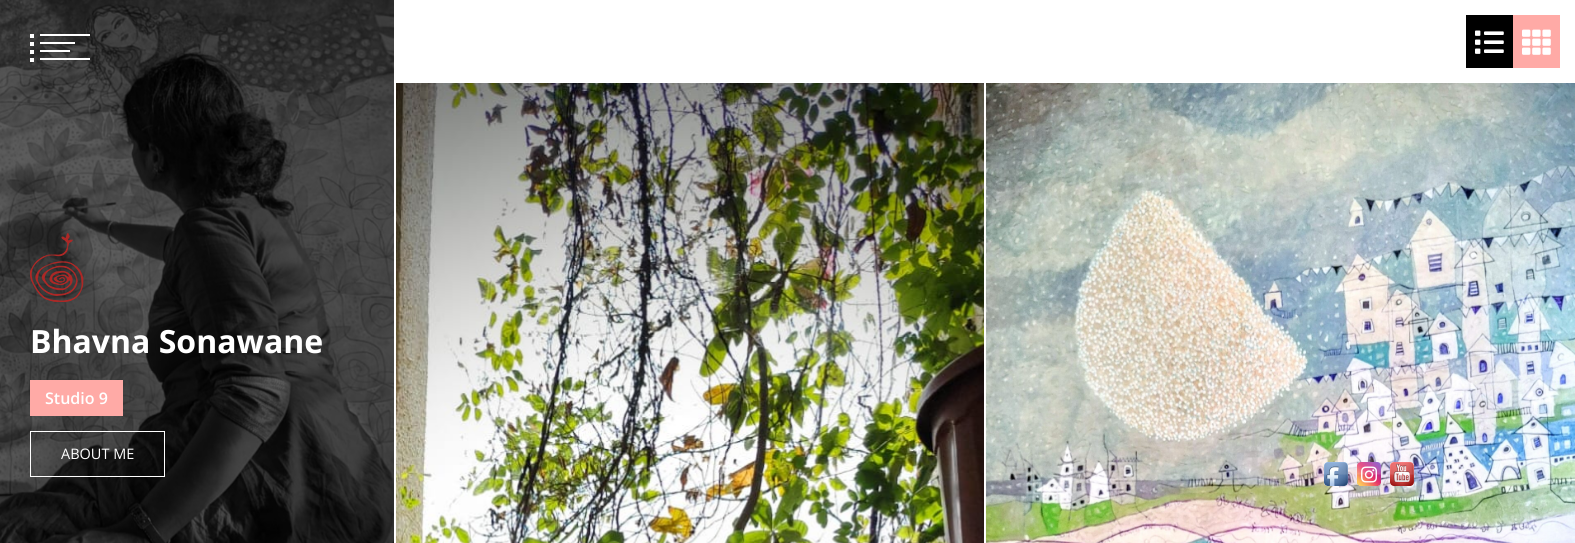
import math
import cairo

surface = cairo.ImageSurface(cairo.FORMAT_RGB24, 1575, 543)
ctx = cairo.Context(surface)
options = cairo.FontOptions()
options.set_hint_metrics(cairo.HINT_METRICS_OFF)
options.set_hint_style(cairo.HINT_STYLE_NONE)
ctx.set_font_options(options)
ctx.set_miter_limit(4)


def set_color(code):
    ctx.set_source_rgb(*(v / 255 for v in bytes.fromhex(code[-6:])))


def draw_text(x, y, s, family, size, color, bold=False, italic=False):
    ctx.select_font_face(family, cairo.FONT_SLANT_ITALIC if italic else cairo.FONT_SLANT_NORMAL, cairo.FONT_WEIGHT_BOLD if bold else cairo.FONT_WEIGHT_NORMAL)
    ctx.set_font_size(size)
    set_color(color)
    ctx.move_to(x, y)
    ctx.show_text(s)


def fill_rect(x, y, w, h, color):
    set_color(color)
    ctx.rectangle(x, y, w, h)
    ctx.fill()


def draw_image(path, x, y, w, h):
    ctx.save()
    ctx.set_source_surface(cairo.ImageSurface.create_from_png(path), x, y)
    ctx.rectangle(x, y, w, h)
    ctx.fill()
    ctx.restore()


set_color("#ffffff")
ctx.paint()
draw_image("assets/img1.png", 0, 0, 394, 543)
fill_rect(30, 34, 4, 4, "#ffffff")
fill_rect(40, 34, 50, 2, "#ffffff")
fill_rect(30, 42, 4, 4, "#ffffff")
fill_rect(40, 42, 35, 2, "#ffffff")
fill_rect(30, 50, 4, 4, "#ffffff")
fill_rect(40, 50, 30, 2, "#ffffff")
fill_rect(30, 58, 4, 4, "#ffffff")
fill_rect(40, 58, 50, 2, "#ffffff")
draw_image("assets/img2.png", 30, 233, 69, 69)
draw_text(30, 353, "Bhavna Sonawane", "Open Sans", 32, "#ffffff", bold=True)
fill_rect(30, 380, 93, 36, "#ffaaa6")
draw_text(45, 404, "Studio 9", "Open Sans SemiBold", 16, "#ffffff")
ctx.rectangle(30.5, 431.5, 134, 45)
ctx.set_line_width(1)
ctx.stroke()
draw_text(61, 459, "ABOUT ME", "Open Sans", 14.5, "#ffffff")
fill_rect(1466, 15, 47, 53, "#000000")
draw_image("assets/img3.png", 1475, 30, 29, 24)
fill_rect(1513, 15, 47, 53, "#ffaaa6")
draw_image("assets/img4.png", 1522, 29, 29, 26)
draw_image("assets/img5.png", 396, 83, 588, 460)
draw_image("assets/img6.png", 1574, 83, 1, 460)
draw_image("assets/img7.png", 986, 83, 589, 460)
draw_image("assets/img8.png", 1324, 462, 24, 24)
draw_image("assets/img9.png", 1357, 462, 24, 24)
draw_image("assets/img10.png", 1390, 462, 24, 24)
surface.write_to_png("output.png")
